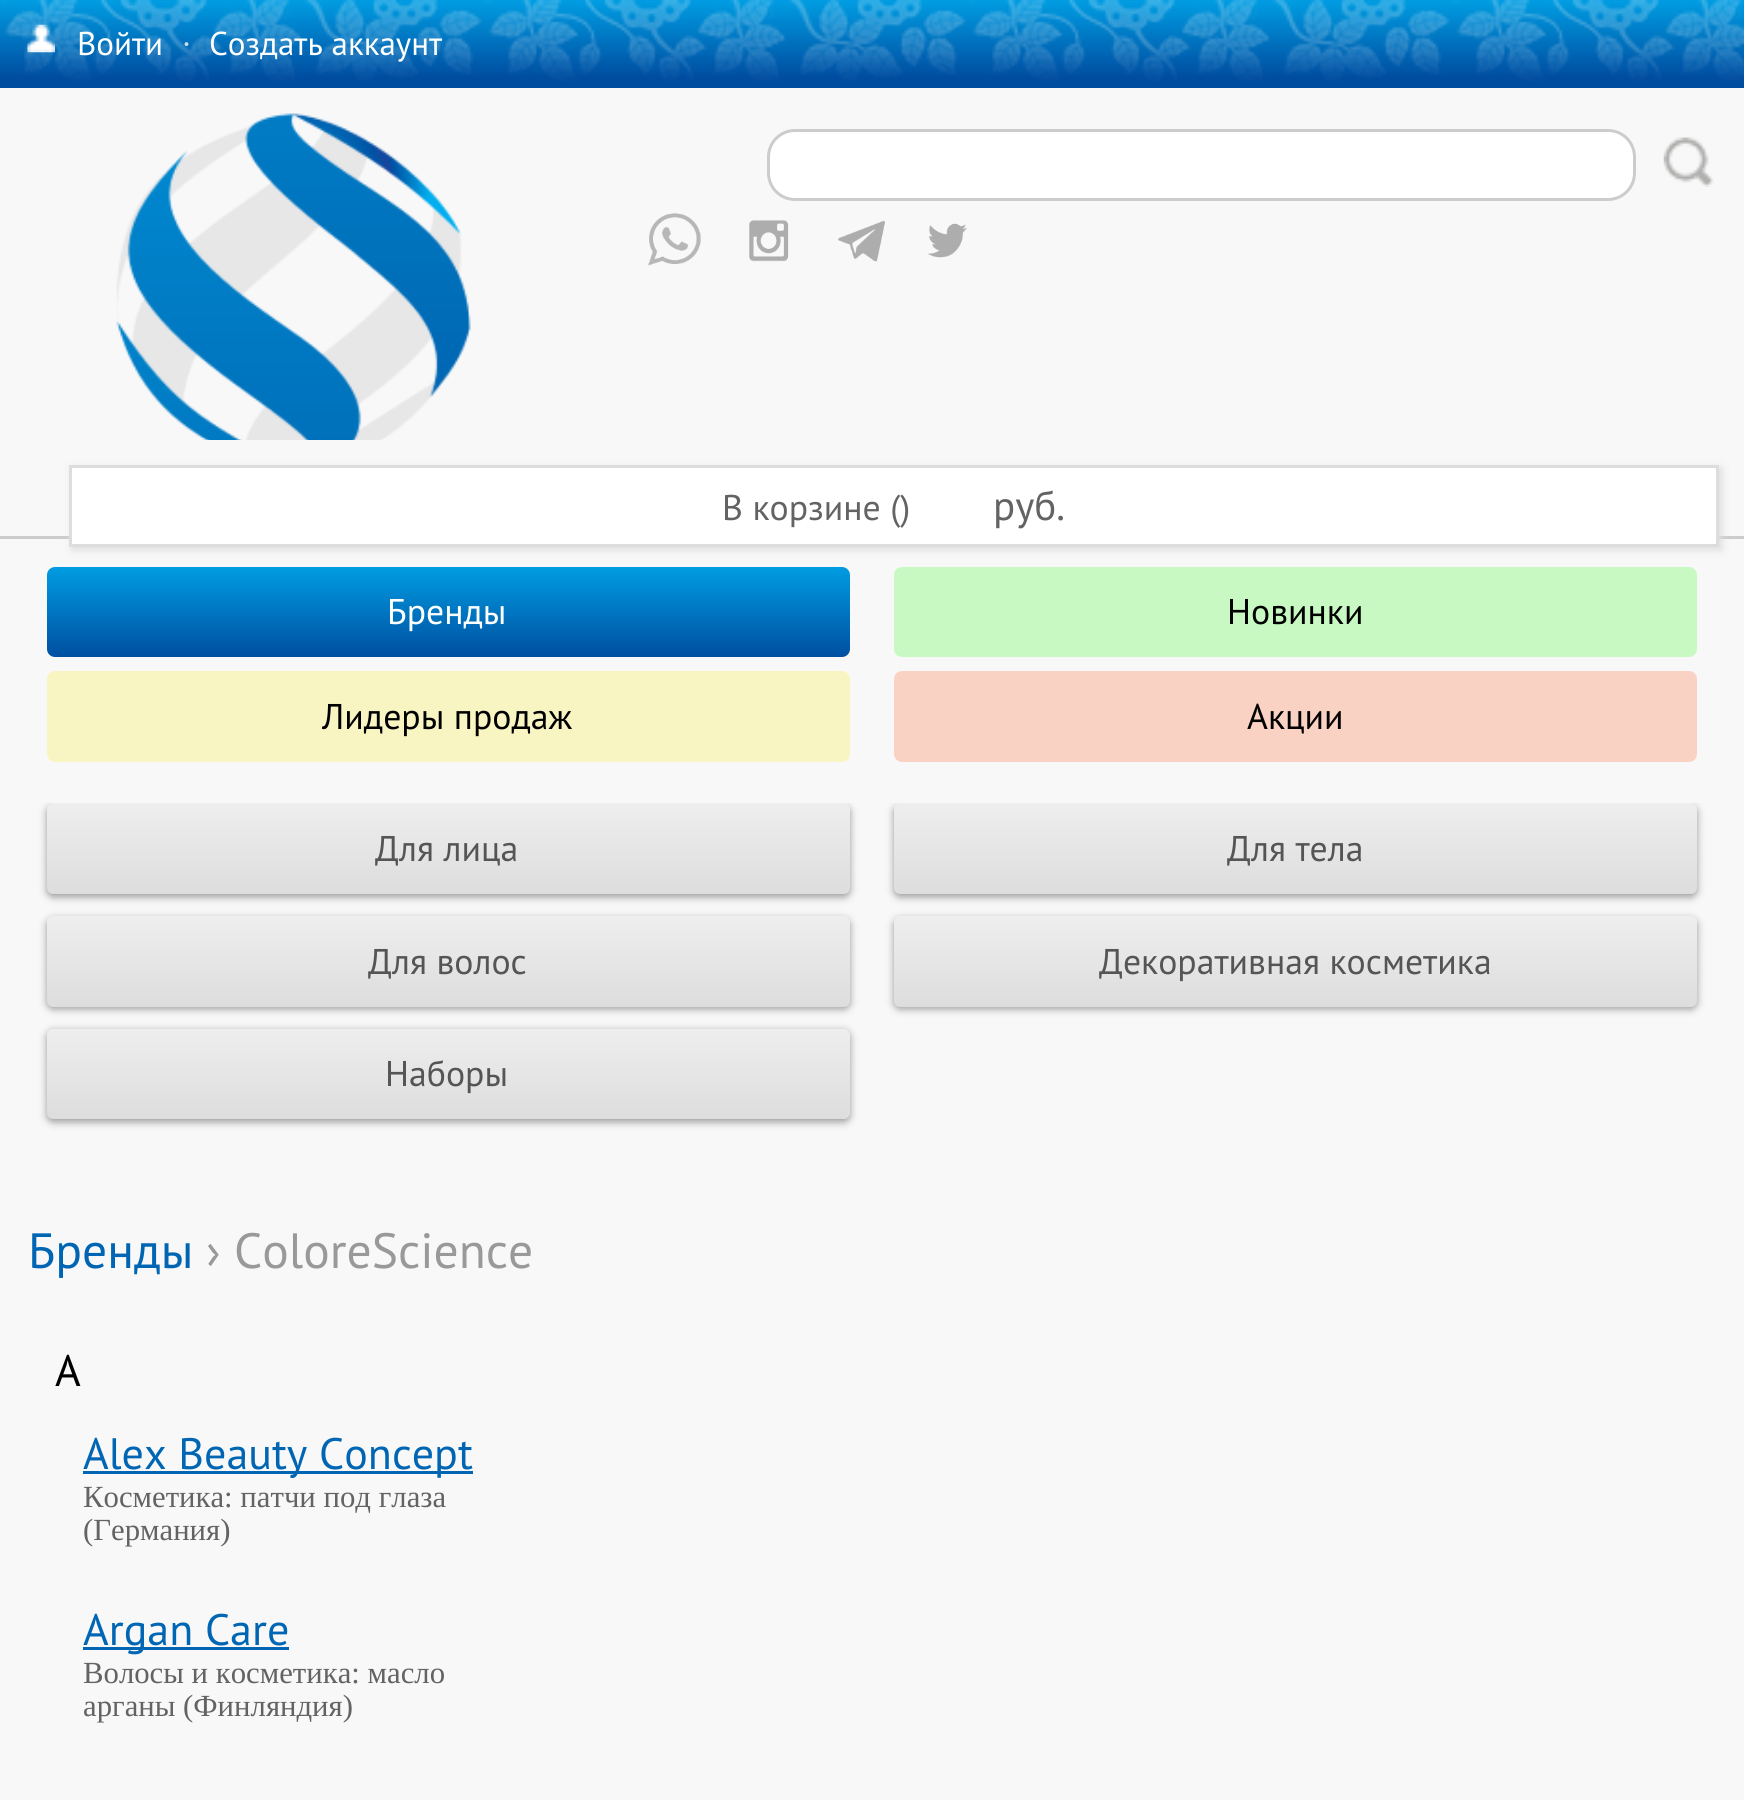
import math
import cairo

surface = cairo.ImageSurface(cairo.FORMAT_RGB24, 1744, 1800)
ctx = cairo.Context(surface)
options = cairo.FontOptions()
options.set_hint_metrics(cairo.HINT_METRICS_OFF)
options.set_hint_style(cairo.HINT_STYLE_NONE)
ctx.set_font_options(options)
ctx.set_miter_limit(4)


def set_color(code):
    ctx.set_source_rgb(*(v / 255 for v in bytes.fromhex(code[-6:])))


def draw_text(x, y, s, family, size, color, bold=False, italic=False):
    ctx.select_font_face(family, cairo.FONT_SLANT_ITALIC if italic else cairo.FONT_SLANT_NORMAL, cairo.FONT_WEIGHT_BOLD if bold else cairo.FONT_WEIGHT_NORMAL)
    ctx.set_font_size(size)
    set_color(color)
    ctx.move_to(x, y)
    ctx.show_text(s)


def fill_rect(x, y, w, h, color):
    set_color(color)
    ctx.rectangle(x, y, w, h)
    ctx.fill()


def rounded_rect(x, y, w, h, r):
    ctx.new_sub_path()
    for i, (u, v) in enumerate([(x + w - r, y + h - r), (x + r, y + h - r), (x + r, y + r), (x + w - r, y + r)]):
        ctx.arc(u, v, r, i * math.pi / 2, (i + 1) * math.pi / 2)
    ctx.close_path()


def draw_shadow(x, y, w, h, r, blur, alpha):
    ctx.push_group_with_content(cairo.CONTENT_ALPHA)
    ctx.set_operator(cairo.OPERATOR_SOURCE)
    for i in range(15, -16, -2):
        e = blur * i / 6
        if min(w, h) + 2 * e > 0:
            ctx.set_source_rgba(0, 0, 0, alpha * math.erfc((i - 1) / 8.5) / 2)
            rounded_rect(x - e, y - e, w + 2 * e, h + 2 * e, max(0, min(r + e + blur * .6, min(w, h) / 2 + e)))
            ctx.fill()
    ctx.mask(ctx.pop_group())


def draw_image(path, x, y, w, h):
    ctx.save()
    ctx.set_source_surface(cairo.ImageSurface.create_from_png(path), x, y)
    ctx.rectangle(x, y, w, h)
    ctx.fill()
    ctx.restore()


set_color("#f8f8f8")
ctx.paint()
draw_image("assets/img1.png", 0, 0, 1744, 88)
draw_image("assets/img2.png", 27, 24, 28, 29)
draw_text(77, 55, "Войти", "PT Sans", 33, "#ffffff")
draw_text(181, 55, "·", "Liberation Serif", 33, "#ccdfe8")
draw_text(209, 55, "Создать аккаунт", "PT Sans", 33, "#ffffff")
fill_rect(0, 536, 1744, 3, "#cccccc")
set_color("#dddddd")
draw_shadow(72, 468, 1650, 82, 0, 4, 1)
set_color("#ffffff")
ctx.rectangle(70.5, 466.5, 1647, 79)
ctx.fill_preserve()
set_color("#dddddd")
ctx.set_line_width(3)
ctx.stroke()
draw_text(722, 520, "В корзине ()", "PT Sans", 35.75, "#636363")
draw_text(993, 520, "руб.", "PT Sans", 41, "#636363")
draw_text(28, 1268, "Бренды", "PT Sans", 49.5, "#0066b3")
draw_text(206, 1268, "› ColoreScience", "PT Sans", 49.5, "#999999")
draw_text(55, 1386, "A", "PT Sans", 44, "#000000")
fill_rect(83, 1471, 390, 3, "#0066b3")
draw_text(83, 1469, "Alex Beauty Concept", "PT Sans", 44, "#0066b3")
draw_text(83, 1507, "Косметика: патчи под глаза", "Liberation Serif", 30.75, "#636363")
draw_text(83, 1540, "(Германия)", "Liberation Serif", 30.75, "#636363")
fill_rect(83, 1647, 206, 3, "#0066b3")
draw_text(83, 1645, "Argan Care", "PT Sans", 44, "#0066b3")
draw_text(83, 1683, "Волосы и косметика: масло", "Liberation Serif", 30.75, "#636363")
draw_text(83, 1716, "арганы (Финляндия)", "Liberation Serif", 30.75, "#636363")
draw_image("assets/img3.png", 116, 113, 355, 327)
set_color("#ffffff")
rounded_rect(768.5, 130.5, 866, 69, 26.5)
ctx.fill_preserve()
set_color("#cccccc")
ctx.stroke()
draw_image("assets/img4.png", 1663, 137, 51, 50)
draw_image("assets/img5.png", 648, 213, 53, 53)
draw_image("assets/img6.png", 749, 220, 40, 42)
draw_image("assets/img7.png", 838, 220, 47, 42)
draw_image("assets/img8.png", 928, 223, 39, 35)
gradient = cairo.LinearGradient(448, 566, 448, 657)
gradient.add_color_stop_rgba(0, 0, 0.616, 0.886, 1)
gradient.add_color_stop_rgba(1, 0, 0.31, 0.631, 1)
ctx.set_source(gradient)
rounded_rect(47, 567, 803, 90, 8)
ctx.fill()
draw_text(387, 624, "Бренды", "PT Sans", 35.75, "#ffffff")
set_color("#c9f9c3")
rounded_rect(894, 567, 803, 90, 8)
ctx.fill()
draw_text(1227, 624, "Новинки", "PT Sans", 35.75, "#000000")
set_color("#f9f5c3")
rounded_rect(47, 671, 803, 91, 8)
ctx.fill()
draw_text(322, 729, "Лидеры продаж", "PT Sans", 35.75, "#000000")
set_color("#f9d2c3")
rounded_rect(894, 671, 803, 91, 8)
ctx.fill()
draw_text(1247, 729, "Акции", "PT Sans", 35.75, "#000000")
ctx.save()
ctx.rectangle(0, 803, 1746, 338)
ctx.clip()
set_color("#999999")
draw_shadow(47, 806, 803, 91, 6, 4, 1)
ctx.restore()
gradient = cairo.LinearGradient(448, 803, 448, 894)
gradient.add_color_stop_rgba(0, 0.933, 0.933, 0.933, 1)
gradient.add_color_stop_rgba(1, 0.867, 0.867, 0.867, 1)
ctx.set_source(gradient)
rounded_rect(47, 803, 803, 91, 6)
ctx.fill()
draw_text(375, 861, "Для лица", "PT Sans", 35.75, "#555555")
ctx.save()
ctx.rectangle(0, 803, 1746, 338)
ctx.clip()
set_color("#999999")
draw_shadow(894, 806, 803, 91, 6, 4, 1)
ctx.restore()
gradient = cairo.LinearGradient(1295, 803, 1295, 894)
gradient.add_color_stop_rgba(0, 0.933, 0.933, 0.933, 1)
gradient.add_color_stop_rgba(1, 0.867, 0.867, 0.867, 1)
ctx.set_source(gradient)
rounded_rect(894, 803, 803, 91, 6)
ctx.fill()
draw_text(1227, 861, "Для тела", "PT Sans", 35.75, "#555555")
set_color("#999999")
draw_shadow(47, 919, 803, 90, 6, 4, 1)
gradient = cairo.LinearGradient(448, 916, 448, 1007)
gradient.add_color_stop_rgba(0, 0.933, 0.933, 0.933, 1)
gradient.add_color_stop_rgba(1, 0.867, 0.867, 0.867, 1)
ctx.set_source(gradient)
rounded_rect(47, 916, 803, 91, 6)
ctx.fill()
draw_text(368, 974, "Для волос", "PT Sans", 35.75, "#555555")
set_color("#999999")
draw_shadow(894, 919, 803, 90, 6, 4, 1)
gradient = cairo.LinearGradient(1295, 916, 1295, 1007)
gradient.add_color_stop_rgba(0, 0.933, 0.933, 0.933, 1)
gradient.add_color_stop_rgba(1, 0.867, 0.867, 0.867, 1)
ctx.set_source(gradient)
rounded_rect(894, 916, 803, 91, 6)
ctx.fill()
draw_text(1099, 974, "Декоративная косметика", "PT Sans", 35.75, "#555555")
set_color("#999999")
draw_shadow(47, 1031, 803, 91, 6, 4, 1)
gradient = cairo.LinearGradient(448, 1029, 448, 1119)
gradient.add_color_stop_rgba(0, 0.933, 0.933, 0.933, 1)
gradient.add_color_stop_rgba(1, 0.867, 0.867, 0.867, 1)
ctx.set_source(gradient)
rounded_rect(47, 1029, 803, 90, 6)
ctx.fill()
draw_text(385, 1086, "Наборы", "PT Sans", 35.75, "#555555")
surface.write_to_png("output.png")
